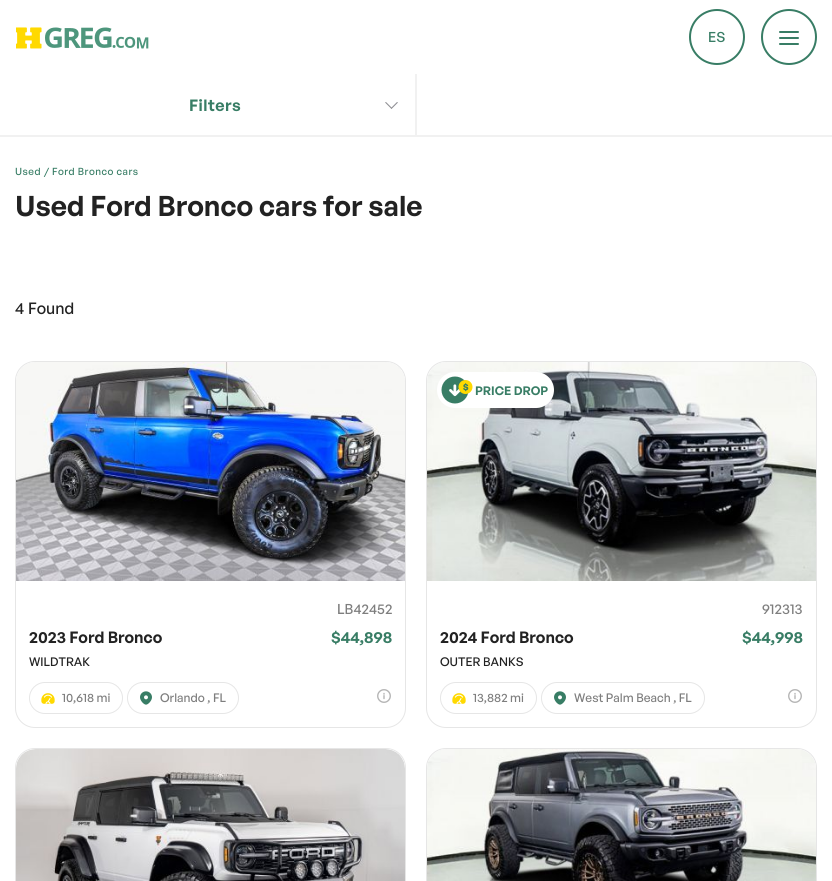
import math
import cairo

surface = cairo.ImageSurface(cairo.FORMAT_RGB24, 832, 881)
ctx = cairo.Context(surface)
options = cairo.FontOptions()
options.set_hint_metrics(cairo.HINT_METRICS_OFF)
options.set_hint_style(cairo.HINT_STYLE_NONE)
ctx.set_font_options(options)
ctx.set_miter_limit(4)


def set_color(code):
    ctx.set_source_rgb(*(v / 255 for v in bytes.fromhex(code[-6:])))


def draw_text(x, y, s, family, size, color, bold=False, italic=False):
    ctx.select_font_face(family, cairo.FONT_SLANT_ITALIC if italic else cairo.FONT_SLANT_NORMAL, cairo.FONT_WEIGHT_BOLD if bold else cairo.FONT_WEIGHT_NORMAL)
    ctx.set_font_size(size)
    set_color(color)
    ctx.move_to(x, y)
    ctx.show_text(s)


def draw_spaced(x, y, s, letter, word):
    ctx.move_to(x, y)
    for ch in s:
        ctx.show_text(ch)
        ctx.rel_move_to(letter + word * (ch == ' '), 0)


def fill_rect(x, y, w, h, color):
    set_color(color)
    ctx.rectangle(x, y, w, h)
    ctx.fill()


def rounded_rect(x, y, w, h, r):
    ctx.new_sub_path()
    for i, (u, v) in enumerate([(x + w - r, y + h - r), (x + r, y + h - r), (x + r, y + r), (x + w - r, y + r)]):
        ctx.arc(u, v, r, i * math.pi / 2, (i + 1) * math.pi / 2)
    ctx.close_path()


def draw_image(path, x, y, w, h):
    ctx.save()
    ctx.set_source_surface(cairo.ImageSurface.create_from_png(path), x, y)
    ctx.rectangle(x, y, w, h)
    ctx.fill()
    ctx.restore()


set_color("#ffffff")
ctx.paint()
draw_image("assets/img1.png", 16, 27, 133, 22)
ctx.arc(717, 37, 27, 0, 2 * math.pi)
set_color("#387d65")
ctx.stroke()
draw_text(708, 42, "ES", "General Sans Medium", 14, "#387d65")
ctx.new_path()
ctx.arc(789, 37, 27, 0, 2 * math.pi)
ctx.stroke()
rounded_rect(779, 31, 20, 2, 1)
ctx.fill()
rounded_rect(779, 37, 20, 2, 1)
ctx.fill()
rounded_rect(779, 43, 20, 2, 1)
ctx.fill()
fill_rect(0, 135, 832, 2, "#f1f1f1")
ctx.select_font_face("General Sans SemiBold")
ctx.set_font_size(16)
set_color("#387d65")
draw_spaced(189, 111, "Filters", 0.5, 0)
set_color("#8e8e93")
ctx.new_path()
ctx.move_to(397, 102)
ctx.line_to(398, 102.5)
ctx.line_to(391.5, 109)
ctx.line_to(391, 108)
ctx.close_path()
ctx.fill()
ctx.new_path()
ctx.move_to(386, 102)
ctx.line_to(392, 108)
ctx.line_to(391.5, 109)
ctx.line_to(385, 102.5)
ctx.close_path()
ctx.fill()
fill_rect(415, 74, 2, 61, "#f1f1f1")
ctx.select_font_face("General Sans Medium")
ctx.set_font_size(10)
set_color("#387d65")
draw_spaced(15, 175, "Used", 0.5, 0)
draw_text(44, 175, "/", "General Sans Medium", 10, "#387d65")
draw_spaced(52, 175, "Ford Bronco cars", 0.5, 0)
draw_text(15, 216, "Used Ford Bronco cars for sale", "General Sans SemiBold", 28, "#222222")
draw_text(15, 314, "4", "General Sans Medium", 16, "#222222")
draw_text(28, 314, "Found", "General Sans Medium", 16, "#222222")
rounded_rect(15.5, 361.5, 390, 366, 19.5)
set_color("#e6e6e6")
ctx.set_line_width(1)
ctx.stroke()
set_color("#f4f4f4")
ctx.new_path()
ctx.move_to(36, 362)
ctx.line_to(385, 362)
ctx.curve_to(396, 362, 405, 371, 405, 382)
ctx.line_to(405, 581)
ctx.line_to(16, 581)
ctx.line_to(16, 382)
ctx.curve_to(16, 371, 25, 362, 36, 362)
ctx.close_path()
ctx.fill()
draw_image("assets/img2.png", 16, 362, 389, 219)
draw_text(337, 614, "LB42452", "General Sans Medium", 14, "#7e7e7e")
draw_text(29, 643, "2023 Ford Bronco", "General Sans SemiBold", 16, "#222222")
draw_text(331, 643, "$44,898", "General Sans SemiBold", 16, "#387d65")
draw_text(29, 666, "WILDTRAK", "General Sans Medium", 12, "#222222")
draw_image("assets/img3.png", 41, 693, 14, 11)
rounded_rect(29.5, 682.5, 93, 31, 15.5)
set_color("#e6e6e6")
ctx.stroke()
draw_text(62, 702, "10,618 mi", "General Sans Medium", 12, "#7e7e7e")
draw_image("assets/img4.png", 140, 691, 12, 14)
rounded_rect(127.5, 682.5, 111, 31, 15.5)
set_color("#e6e6e6")
ctx.stroke()
draw_text(160, 702, "Orlando , FL", "General Sans Medium", 12, "#7e7e7e")
draw_image("assets/img5.png", 377, 689, 14, 14)
rounded_rect(426.5, 361.5, 390, 366, 19.5)
set_color("#e6e6e6")
ctx.stroke()
set_color("#f4f4f4")
ctx.new_path()
ctx.move_to(447, 362)
ctx.line_to(796, 362)
ctx.curve_to(807, 362, 816, 371, 816, 382)
ctx.line_to(816, 581)
ctx.line_to(427, 581)
ctx.line_to(427, 382)
ctx.curve_to(427, 371, 436, 362, 447, 362)
ctx.close_path()
ctx.fill()
draw_image("assets/img6.png", 427, 362, 389, 219)
set_color("#ffffff")
rounded_rect(437, 372, 117, 36, 18)
ctx.fill()
draw_image("assets/img7.png", 441, 376, 32, 28)
draw_text(475, 395, "PRICE DROP", "General Sans SemiBold", 12, "#387d65")
draw_text(762, 614, "912313", "General Sans Medium", 14, "#7e7e7e")
draw_text(440, 643, "2024 Ford Bronco", "General Sans SemiBold", 16, "#222222")
draw_text(742, 643, "$44,998", "General Sans SemiBold", 16, "#387d65")
draw_text(440, 666, "OUTER BANKS", "General Sans Medium", 12, "#222222")
draw_image("assets/img3.png", 452, 693, 14, 11)
rounded_rect(440.5, 682.5, 96, 31, 15.5)
set_color("#e6e6e6")
ctx.stroke()
draw_text(473, 702, "13,882 mi", "General Sans Medium", 12, "#7e7e7e")
draw_image("assets/img4.png", 554, 691, 12, 14)
rounded_rect(541.5, 682.5, 163, 31, 15.5)
set_color("#e6e6e6")
ctx.stroke()
draw_text(574, 702, "West Palm Beach , FL", "General Sans Medium", 12, "#7e7e7e")
draw_image("assets/img5.png", 788, 689, 14, 14)
rounded_rect(15.5, 748.5, 390, 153, 19.5)
set_color("#e6e6e6")
ctx.stroke()
set_color("#f4f4f4")
ctx.new_path()
ctx.move_to(36, 749)
ctx.line_to(385, 749)
ctx.curve_to(396, 749, 405, 758, 405, 769)
ctx.line_to(405, 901)
ctx.line_to(16, 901)
ctx.line_to(16, 769)
ctx.curve_to(16, 758, 25, 749, 36, 749)
ctx.close_path()
ctx.fill()
draw_image("assets/img8.png", 16, 749, 389, 132)
rounded_rect(426.5, 748.5, 390, 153, 19.5)
set_color("#e6e6e6")
ctx.stroke()
set_color("#f4f4f4")
ctx.new_path()
ctx.move_to(447, 749)
ctx.line_to(796, 749)
ctx.curve_to(807, 749, 816, 758, 816, 769)
ctx.line_to(816, 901)
ctx.line_to(427, 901)
ctx.line_to(427, 769)
ctx.curve_to(427, 758, 436, 749, 447, 749)
ctx.close_path()
ctx.fill()
draw_image("assets/img9.png", 427, 749, 389, 132)
surface.write_to_png("output.png")
